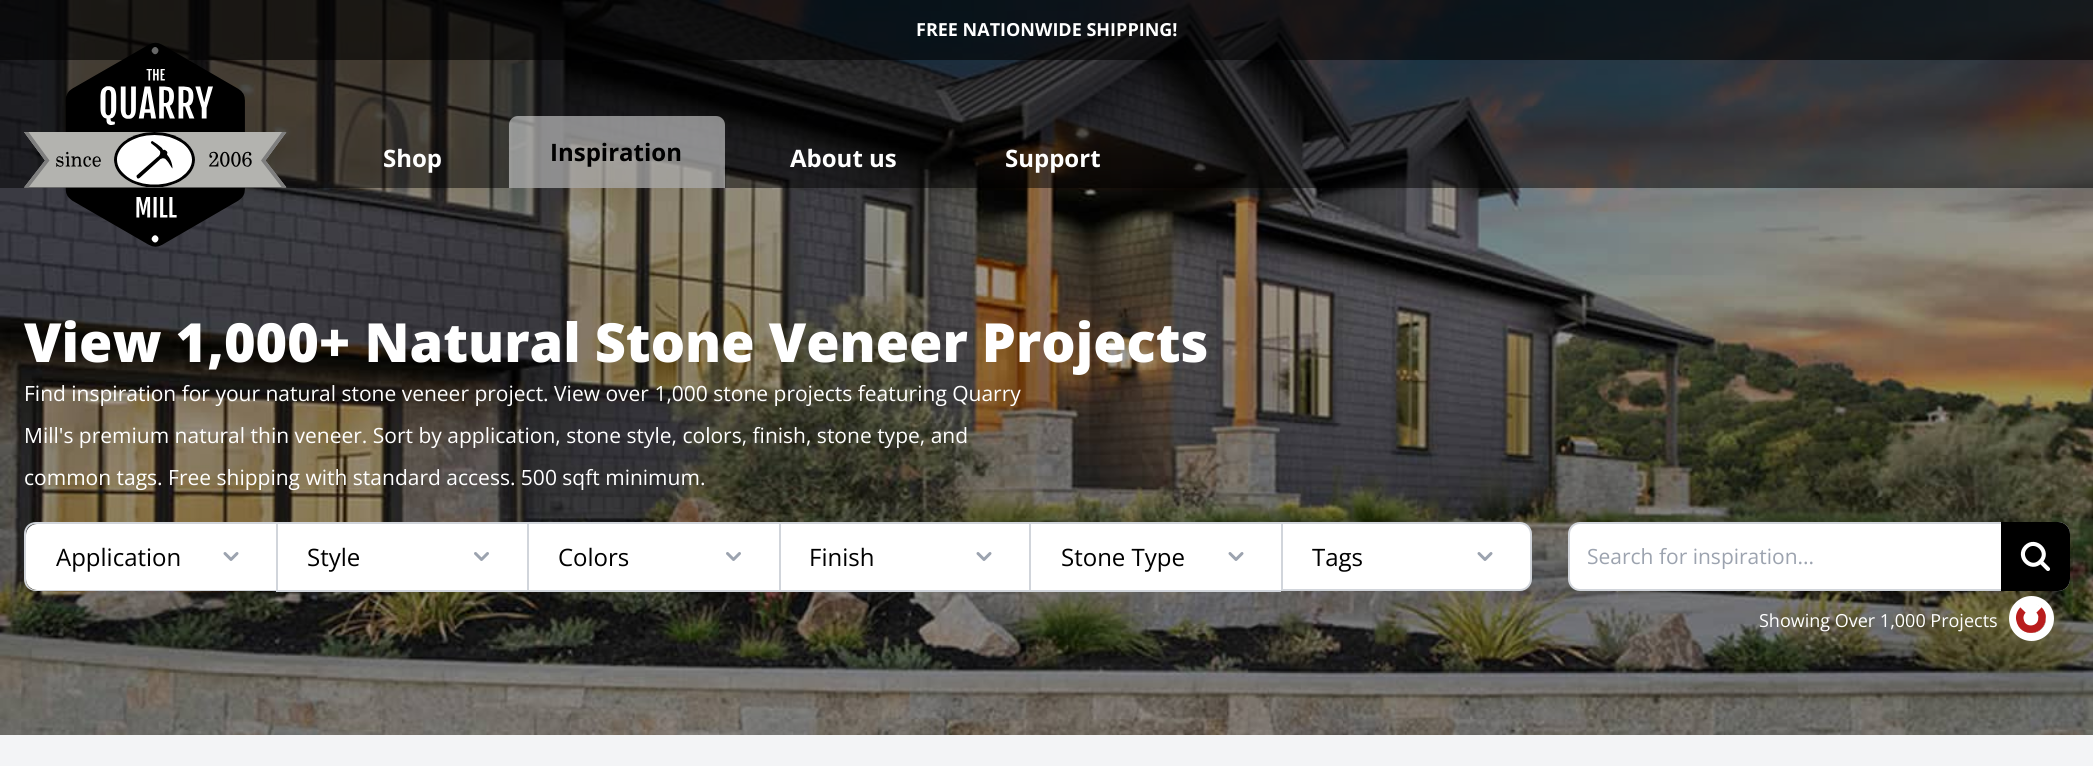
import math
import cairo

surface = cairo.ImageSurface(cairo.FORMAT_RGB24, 2093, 766)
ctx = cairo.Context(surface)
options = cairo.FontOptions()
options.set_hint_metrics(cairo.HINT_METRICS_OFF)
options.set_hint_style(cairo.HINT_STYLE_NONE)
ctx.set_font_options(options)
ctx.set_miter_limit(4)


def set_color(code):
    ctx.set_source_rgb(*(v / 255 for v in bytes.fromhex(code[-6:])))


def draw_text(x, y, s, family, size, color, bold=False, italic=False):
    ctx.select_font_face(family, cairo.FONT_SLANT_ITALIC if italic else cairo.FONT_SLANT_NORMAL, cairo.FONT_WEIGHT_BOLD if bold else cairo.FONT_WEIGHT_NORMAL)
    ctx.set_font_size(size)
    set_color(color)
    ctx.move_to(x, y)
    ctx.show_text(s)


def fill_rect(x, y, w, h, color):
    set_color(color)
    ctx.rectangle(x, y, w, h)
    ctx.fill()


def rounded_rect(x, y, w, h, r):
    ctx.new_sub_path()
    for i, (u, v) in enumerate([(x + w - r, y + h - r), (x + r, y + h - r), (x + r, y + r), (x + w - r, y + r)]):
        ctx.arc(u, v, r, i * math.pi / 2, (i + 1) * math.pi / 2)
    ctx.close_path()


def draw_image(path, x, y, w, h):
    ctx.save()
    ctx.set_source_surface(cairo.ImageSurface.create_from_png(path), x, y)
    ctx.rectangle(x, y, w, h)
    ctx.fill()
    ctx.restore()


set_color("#f3f4f6")
ctx.paint()
draw_image("assets/img2.png", 0, 0, 2093, 735)
ctx.set_source_rgba(0, 0, 0, 0.5)
ctx.rectangle(0, 0, 2093, 188)
ctx.fill()
draw_image("assets/img1.png", 24, 42, 263, 205)
ctx.set_source_rgba(0, 0, 0, 0.6)
ctx.rectangle(0, 0, 2093, 60)
ctx.fill()
draw_text(916, 36, "FREE NATIONWIDE SHIPPING!", "Open Sans", 18, "#ffffff", bold=True)
draw_text(383, 167, "Shop", "Open Sans", 24, "#ffffff", bold=True)
ctx.set_source_rgba(1, 1, 1, 0.5)
ctx.new_path()
ctx.move_to(518, 116)
ctx.line_to(716, 116)
ctx.curve_to(721, 116, 725, 120, 725, 125)
ctx.line_to(725, 188)
ctx.line_to(509, 188)
ctx.line_to(509, 125)
ctx.curve_to(509, 120, 513, 116, 518, 116)
ctx.close_path()
ctx.fill()
draw_text(550, 161, "Inspiration", "Open Sans", 24, "#000000", bold=True)
draw_text(790, 167, "About us", "Open Sans", 24, "#ffffff", bold=True)
draw_text(1005, 167, "Support", "Open Sans", 24, "#ffffff", bold=True)
draw_text(24, 362, "View 1,000+ Natural Stone Veneer Projects", "Open Sans ExtraBold", 54, "#ffffff")
draw_text(24, 401, "Find inspiration for your natural stone veneer project. View over 1,000 stone projects featuring Quarry", "Open Sans", 21, "#ffffff")
draw_text(24, 443, "Mill's premium natural thin veneer. Sort by application, stone style, colors, finish, stone type, and", "Open Sans", 21, "#ffffff")
draw_text(24, 485, "common tags. Free shipping with standard access. 500 sqft minimum.", "Open Sans", 21, "#ffffff")
ctx.new_path()
ctx.move_to(37, 524)
ctx.line_to(276, 524)
ctx.line_to(276, 590)
ctx.line_to(37, 590)
ctx.curve_to(31, 590, 26, 585, 26, 579)
ctx.line_to(26, 535)
ctx.curve_to(26, 529, 31, 524, 37, 524)
ctx.close_path()
ctx.fill()
set_color("#d1d5db")
ctx.set_fill_rule(cairo.FILL_RULE_EVEN_ODD)
ctx.new_path()
ctx.move_to(36, 522)
ctx.line_to(276, 522)
ctx.line_to(276, 591)
ctx.line_to(36, 591)
ctx.curve_to(29, 591, 24, 586, 24, 579)
ctx.line_to(24, 534)
ctx.curve_to(24, 527, 29, 522, 36, 522)
ctx.close_path()
ctx.move_to(36, 524)
ctx.line_to(276, 524)
ctx.line_to(276, 590)
ctx.line_to(36, 590)
ctx.curve_to(30, 590, 26, 585, 26, 579)
ctx.line_to(26, 534)
ctx.curve_to(26, 528, 30, 524, 36, 524)
ctx.close_path()
ctx.fill()
draw_text(56, 566, "Application", "Open Sans", 24, "#000000")
draw_image("assets/img3.png", 223, 552, 16, 9)
fill_rect(278, 524, 249, 66, "#ffffff")
fill_rect(276, 522, 1005, 2, "#d1d5db")
fill_rect(276, 590, 1005, 2, "#d1d5db")
fill_rect(276, 522, 2, 69, "#d1d5db")
draw_text(307, 566, "Style", "Open Sans", 24, "#000000")
draw_image("assets/img4.png", 474, 552, 15, 9)
fill_rect(529, 524, 250, 66, "#ffffff")
fill_rect(527, 522, 2, 69, "#d1d5db")
draw_text(558, 566, "Colors", "Open Sans", 24, "#000000")
draw_image("assets/img4.png", 726, 552, 15, 9)
fill_rect(781, 524, 248, 66, "#ffffff")
fill_rect(779, 522, 2, 69, "#d1d5db")
draw_text(809, 566, "Finish", "Open Sans", 24, "#000000")
draw_image("assets/img3.png", 976, 552, 16, 9)
fill_rect(1031, 524, 250, 66, "#ffffff")
fill_rect(1029, 522, 2, 69, "#d1d5db")
draw_text(1061, 566, "Stone Type", "Open Sans", 24, "#000000")
draw_image("assets/img3.png", 1228, 552, 16, 9)
set_color("#ffffff")
ctx.new_path()
ctx.move_to(1282, 523)
ctx.line_to(1520, 523)
ctx.curve_to(1526, 523, 1531, 528, 1531, 534)
ctx.line_to(1531, 579)
ctx.curve_to(1531, 585, 1526, 590, 1520, 590)
ctx.line_to(1282, 590)
ctx.close_path()
ctx.fill_preserve()
set_color("#d1d5db")
ctx.stroke()
draw_text(1312, 566, "Tags", "Open Sans", 24, "#000000")
draw_image("assets/img3.png", 1477, 552, 16, 9)
set_color("#ffffff")
rounded_rect(1569, 523, 500, 67, 11)
ctx.fill_preserve()
set_color("#d1d5db")
ctx.stroke()
draw_text(1587, 564, "Search for inspiration...", "Open Sans", 21, "#9ca3af")
set_color("#000000")
ctx.new_path()
ctx.move_to(2001, 522)
ctx.line_to(2058, 522)
ctx.curve_to(2064.5, 522, 2070, 527.5, 2070, 534)
ctx.line_to(2070, 579)
ctx.curve_to(2070, 585.5, 2064.5, 591, 2058, 591)
ctx.line_to(2001, 591)
ctx.close_path()
ctx.fill()
ctx.new_path()
ctx.move_to(2048, 569)
ctx.line_to(2040.5, 561.5)
ctx.move_to(2040.5, 561.5)
ctx.curve_to(2050.5, 552, 2035.5, 537.5, 2026, 547)
ctx.curve_to(2016.5, 556.5, 2031, 571.5, 2040.5, 561.5)
ctx.close_path()
set_color("#ffffff")
ctx.set_line_width(4.1)
ctx.set_line_cap(cairo.LINE_CAP_ROUND)
ctx.set_line_join(cairo.LINE_JOIN_ROUND)
ctx.stroke()
draw_text(1759, 627, "Showing Over 1,000 Projects", "Open Sans", 18, "#ffffff")
ctx.new_path()
ctx.arc(2031.5, 618.5, 18.5, 0, 2 * math.pi)
ctx.set_line_width(8)
ctx.set_line_cap(cairo.LINE_CAP_BUTT)
ctx.set_line_join(cairo.LINE_JOIN_MITER)
ctx.stroke()
ctx.arc(2031, 618, 15, 0, 2 * math.pi)
ctx.fill()
ctx.new_path()
ctx.move_to(2039, 610)
ctx.curve_to(2041, 612, 2042.5, 615, 2042, 618)
ctx.curve_to(2042, 631.5, 2022.5, 633.5, 2020, 620)
ctx.curve_to(2019, 616.5, 2020.5, 612.5, 2023, 610)
set_color("#b91c1c")
ctx.set_line_width(7.5)
ctx.stroke()
surface.write_to_png("output.png")
